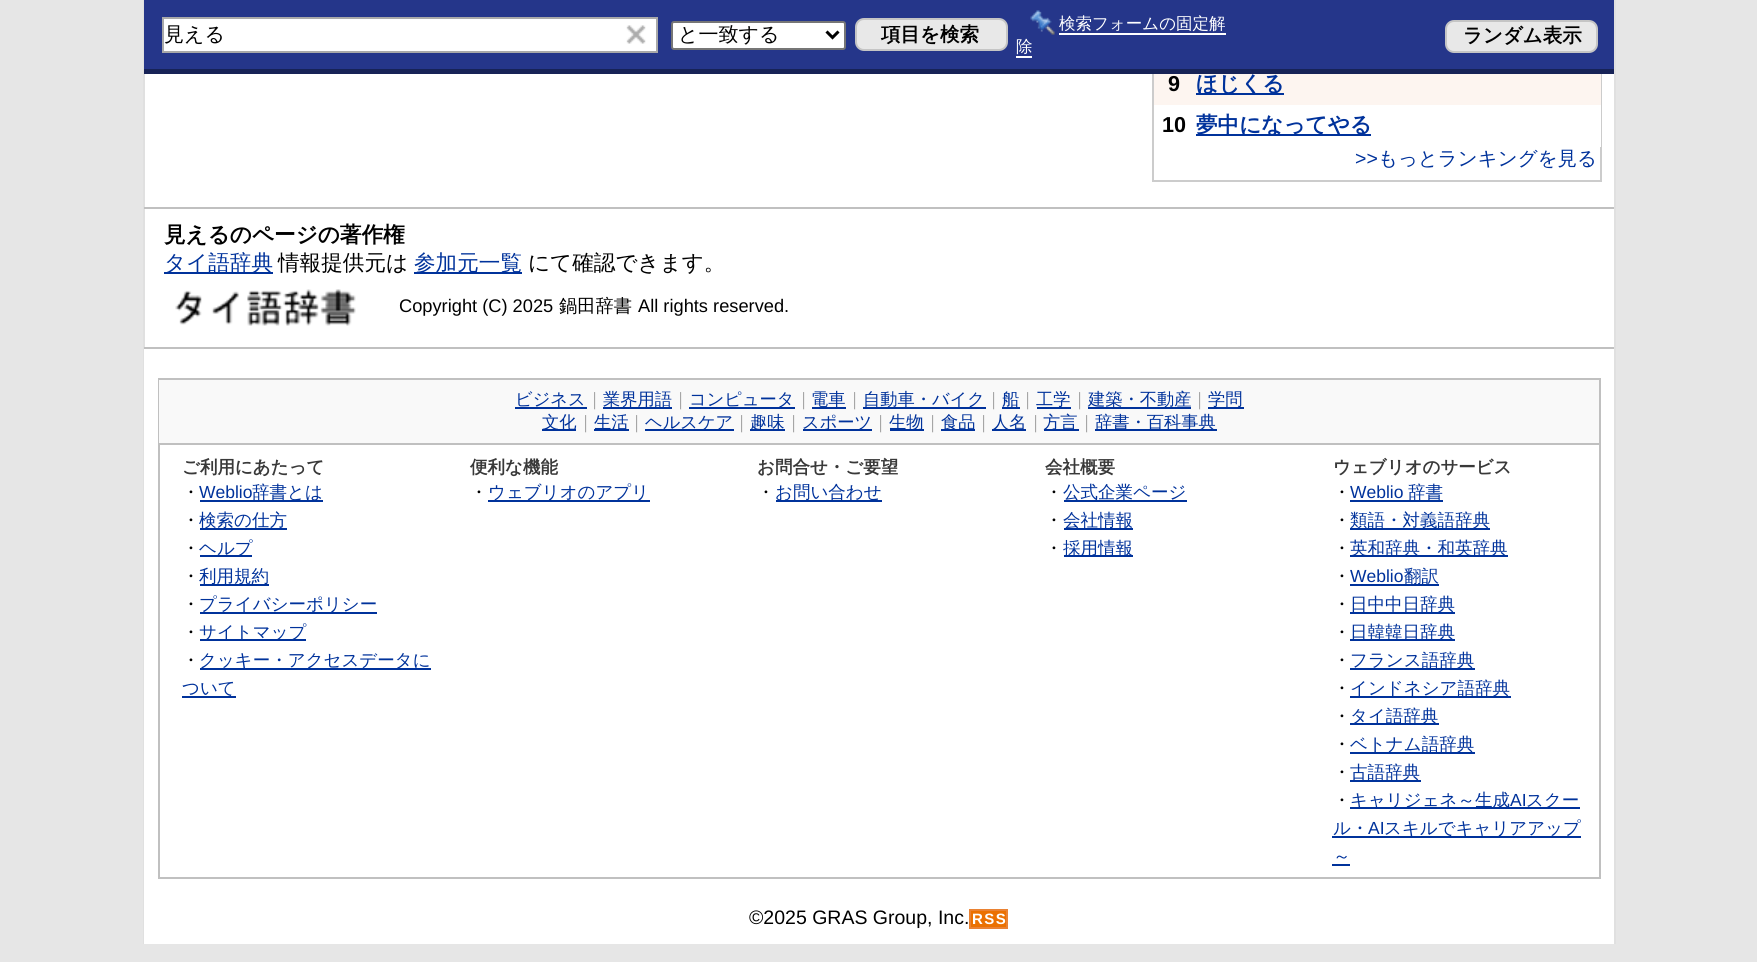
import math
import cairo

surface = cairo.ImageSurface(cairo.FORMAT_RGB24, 1757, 962)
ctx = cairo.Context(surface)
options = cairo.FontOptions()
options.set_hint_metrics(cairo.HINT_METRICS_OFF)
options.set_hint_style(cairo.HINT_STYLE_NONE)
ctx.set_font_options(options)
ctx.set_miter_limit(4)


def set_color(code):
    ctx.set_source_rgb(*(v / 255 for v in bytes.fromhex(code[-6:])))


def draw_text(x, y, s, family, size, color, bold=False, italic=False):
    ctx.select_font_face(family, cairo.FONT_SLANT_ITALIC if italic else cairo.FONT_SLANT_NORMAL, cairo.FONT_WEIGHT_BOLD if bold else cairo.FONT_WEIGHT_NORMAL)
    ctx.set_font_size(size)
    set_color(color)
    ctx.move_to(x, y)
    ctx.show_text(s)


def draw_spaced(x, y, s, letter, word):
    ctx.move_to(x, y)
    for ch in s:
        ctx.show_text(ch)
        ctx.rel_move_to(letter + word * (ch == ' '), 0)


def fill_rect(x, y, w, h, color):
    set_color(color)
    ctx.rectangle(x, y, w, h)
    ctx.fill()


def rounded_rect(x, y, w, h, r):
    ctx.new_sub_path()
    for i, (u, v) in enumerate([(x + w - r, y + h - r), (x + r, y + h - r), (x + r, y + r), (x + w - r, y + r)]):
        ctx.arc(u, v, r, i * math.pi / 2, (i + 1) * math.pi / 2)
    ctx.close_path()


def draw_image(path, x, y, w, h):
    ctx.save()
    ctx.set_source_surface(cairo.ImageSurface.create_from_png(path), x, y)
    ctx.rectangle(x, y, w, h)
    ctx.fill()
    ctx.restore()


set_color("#e6e6e6")
ctx.paint()
fill_rect(145, 74, 1469, 273, "#ffffff")
fill_rect(1614, 0, 2, 944, "#e0e0e0")
fill_rect(143, 0, 2, 944, "#e0e0e0")
ctx.rectangle(1153, -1, 448, 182)
set_color("#cccccc")
ctx.stroke()
fill_rect(144, 0, 1470, 69, "#25368a")
fill_rect(144, 69, 1470, 5, "#172357")
fill_rect(164, 19, 492, 32, "#ffffff")
fill_rect(162, 17, 495, 2, "#a9a9a9")
fill_rect(656, 17, 2, 36, "#a9a9a9")
fill_rect(162, 51, 495, 2, "#a9a9a9")
fill_rect(162, 17, 2, 36, "#a9a9a9")
draw_text(164, 41, "見える", "WenQuanYi Zen Hei Medium", 20, "#000000")
draw_image("assets/img1.png", 626, 25, 20, 19)
set_color("#ffffff")
rounded_rect(672, 22, 173, 27, 2)
ctx.fill_preserve()
set_color("#767676")
ctx.stroke()
ctx.new_path()
ctx.move_to(826.5, 31.5)
ctx.line_to(832.5, 37.5)
ctx.line_to(838.5, 31.5)
set_color("#000000")
ctx.set_line_width(3)
ctx.stroke()
draw_text(678, 41, "と一致する", "WenQuanYi Zen Hei Medium", 20, "#000000")
set_color("#e8e8e8")
rounded_rect(856, 19, 151, 31, 8)
ctx.fill_preserve()
set_color("#c5c5c5")
ctx.set_line_width(2)
ctx.stroke()
draw_text(881, 41, "項目を検索", "WenQuanYi Zen Hei", 19.5, "#000000", bold=True)
draw_image("assets/img2.png", 1030, 10, 25, 25)
draw_text(1059, 29, "検索フォームの固定解", "WenQuanYi Zen Hei Medium", 16.5, "#ffffff")
fill_rect(1059, 33, 167, 2, "#ffffff")
draw_text(1016, 52, "除", "WenQuanYi Zen Hei Medium", 16.5, "#ffffff")
fill_rect(1016, 56, 16, 2, "#ffffff")
set_color("#e8e8e8")
rounded_rect(1446, 21, 151, 31, 8)
ctx.fill_preserve()
set_color("#c5c5c5")
ctx.stroke()
draw_text(1463, 42, "ランダム表示", "WenQuanYi Zen Hei", 19.5, "#000000", bold=True)
fill_rect(1600, 105, 1, 42, "#ffffff")
fill_rect(1154, 74, 447, 31, "#fdf5f0")
draw_text(1168, 91, "9", "Liberation Sans", 21.6, "#000000", bold=True)
fill_rect(1196, 93, 88, 2, "#00329b")
draw_text(1196, 91, "ほじくる", "WenQuanYi Zen Hei", 21.6, "#00329b", bold=True)
draw_text(1162, 132, "10", "Liberation Sans", 21.6, "#000000", bold=True)
fill_rect(1196, 134, 175, 2, "#00329b")
draw_text(1196, 132, "夢中になってやる", "WenQuanYi Zen Hei", 21.6, "#00329b", bold=True)
draw_text(1355, 165, ">>", "Liberation Sans", 19.5, "#00329b")
draw_text(1378, 165, "もっとランキングを見る", "WenQuanYi Zen Hei Medium", 19.5, "#00329b")
fill_rect(144, 207, 1470, 2, "#c0c0c0")
draw_text(164, 242, "見えるのページの著作権", "WenQuanYi Zen Hei", 21.6, "#000000", bold=True)
fill_rect(164, 272, 109, 2, "#00329b")
draw_text(164, 270, "タイ語辞典", "WenQuanYi Zen Hei Medium", 21.6, "#00329b")
draw_text(278, 270, "情報提供元は", "WenQuanYi Zen Hei Medium", 21.6, "#000000")
fill_rect(414, 272, 108, 2, "#00329b")
draw_text(414, 270, "参加元一覧", "WenQuanYi Zen Hei Medium", 21.6, "#00329b")
draw_text(528, 270, "にて確認できます。", "WenQuanYi Zen Hei Medium", 21.6, "#000000")
draw_image("assets/img3.png", 175, 289, 181, 37)
draw_text(399, 312, "Copyright (C) 2025", "Liberation Sans", 18.25, "#000000")
draw_text(559, 312, "鍋田辞書", "WenQuanYi Zen Hei Medium", 18.25, "#000000")
draw_text(638, 312, "All rights reserved.", "Liberation Sans", 18.25, "#000000")
fill_rect(144, 349, 1470, 595, "#ffffff")
fill_rect(144, 347, 1470, 2, "#c0c0c0")
ctx.rectangle(159, 379, 1441, 499)
ctx.stroke()
fill_rect(159, 380, 1440, 63, "#f9f9f9")
fill_rect(159, 443, 1440, 2, "#c0c0c0")
fill_rect(515, 407, 72, 2, "#00329b")
draw_text(515, 405, "ビジネス", "WenQuanYi Zen Hei Medium", 17.25, "#00329b")
draw_text(586, 405, "｜", "WenQuanYi Zen Hei Medium", 17.25, "#9e9e9e")
fill_rect(603, 407, 69, 2, "#00329b")
draw_text(603, 405, "業界用語", "WenQuanYi Zen Hei Medium", 17.25, "#00329b")
draw_text(672, 405, "｜", "WenQuanYi Zen Hei Medium", 17.25, "#9e9e9e")
fill_rect(689, 407, 106, 2, "#00329b")
draw_text(689, 405, "コンピュータ", "WenQuanYi Zen Hei Medium", 17.25, "#00329b")
draw_text(795, 405, "｜", "WenQuanYi Zen Hei Medium", 17.25, "#9e9e9e")
fill_rect(812, 407, 34, 2, "#00329b")
draw_text(811, 405, "電車", "WenQuanYi Zen Hei Medium", 17.25, "#00329b")
draw_text(846, 405, "｜", "WenQuanYi Zen Hei Medium", 17.25, "#9e9e9e")
fill_rect(863, 407, 123, 2, "#00329b")
draw_text(863, 405, "自動車・バイク", "WenQuanYi Zen Hei Medium", 17.25, "#00329b")
draw_text(985, 405, "｜", "WenQuanYi Zen Hei Medium", 17.25, "#9e9e9e")
fill_rect(1002, 407, 18, 2, "#00329b")
draw_text(1002, 405, "船", "WenQuanYi Zen Hei Medium", 17.25, "#00329b")
draw_text(1019, 405, "｜", "WenQuanYi Zen Hei Medium", 17.25, "#9e9e9e")
fill_rect(1037, 407, 34, 2, "#00329b")
draw_text(1036, 405, "工学", "WenQuanYi Zen Hei Medium", 17.25, "#00329b")
draw_text(1071, 405, "｜", "WenQuanYi Zen Hei Medium", 17.25, "#9e9e9e")
fill_rect(1088, 407, 103, 2, "#00329b")
draw_text(1088, 405, "建築・不動産", "WenQuanYi Zen Hei Medium", 17.25, "#00329b")
draw_text(1191, 405, "｜", "WenQuanYi Zen Hei Medium", 17.25, "#9e9e9e")
fill_rect(1208, 407, 36, 2, "#00329b")
draw_text(1208, 405, "学問", "WenQuanYi Zen Hei Medium", 17.25, "#00329b")
fill_rect(542, 429, 34, 2, "#00329b")
draw_text(542, 428, "文化", "WenQuanYi Zen Hei Medium", 17.25, "#00329b")
draw_text(577, 428, "｜", "WenQuanYi Zen Hei Medium", 17.25, "#9e9e9e")
fill_rect(594, 429, 35, 2, "#00329b")
draw_text(594, 428, "生活", "WenQuanYi Zen Hei Medium", 17.25, "#00329b")
draw_text(628, 428, "｜", "WenQuanYi Zen Hei Medium", 17.25, "#9e9e9e")
fill_rect(645, 429, 89, 2, "#00329b")
draw_text(645, 428, "ヘルスケア", "WenQuanYi Zen Hei Medium", 17.25, "#00329b")
draw_text(733, 428, "｜", "WenQuanYi Zen Hei Medium", 17.25, "#9e9e9e")
fill_rect(750, 429, 35, 2, "#00329b")
draw_text(750, 428, "趣味", "WenQuanYi Zen Hei Medium", 17.25, "#00329b")
draw_text(785, 428, "｜", "WenQuanYi Zen Hei Medium", 17.25, "#9e9e9e")
fill_rect(803, 429, 69, 2, "#00329b")
draw_text(802, 428, "スポーツ", "WenQuanYi Zen Hei Medium", 17.25, "#00329b")
draw_text(872, 428, "｜", "WenQuanYi Zen Hei Medium", 17.25, "#9e9e9e")
fill_rect(890, 429, 34, 2, "#00329b")
draw_text(889, 428, "生物", "WenQuanYi Zen Hei Medium", 17.25, "#00329b")
draw_text(924, 428, "｜", "WenQuanYi Zen Hei Medium", 17.25, "#9e9e9e")
fill_rect(941, 429, 34, 2, "#00329b")
draw_text(941, 428, "食品", "WenQuanYi Zen Hei Medium", 17.25, "#00329b")
draw_text(975, 428, "｜", "WenQuanYi Zen Hei Medium", 17.25, "#9e9e9e")
fill_rect(992, 429, 34, 2, "#00329b")
draw_text(992, 428, "人名", "WenQuanYi Zen Hei Medium", 17.25, "#00329b")
draw_text(1027, 428, "｜", "WenQuanYi Zen Hei Medium", 17.25, "#9e9e9e")
fill_rect(1044, 429, 35, 2, "#00329b")
draw_text(1043, 428, "方言", "WenQuanYi Zen Hei Medium", 17.25, "#00329b")
draw_text(1078, 428, "｜", "WenQuanYi Zen Hei Medium", 17.25, "#9e9e9e")
fill_rect(1095, 429, 122, 2, "#00329b")
draw_text(1095, 428, "辞書・百科事典", "WenQuanYi Zen Hei Medium", 17.25, "#00329b")
draw_text(182, 473, "ご利用にあたって", "WenQuanYi Zen Hei", 17.5, "#393939", bold=True)
draw_text(182, 498, "・", "WenQuanYi Zen Hei Medium", 17.5, "#000000")
draw_text(199, 498, "Weblio", "Liberation Sans", 17.5, "#00329b")
fill_rect(200, 500, 123, 2, "#00329b")
draw_text(252, 498, "辞書とは", "WenQuanYi Zen Hei Medium", 17.5, "#00329b")
draw_text(182, 526, "・", "WenQuanYi Zen Hei Medium", 17.5, "#000000")
fill_rect(200, 528, 87, 2, "#00329b")
draw_text(199, 526, "検索の仕方", "WenQuanYi Zen Hei Medium", 17.5, "#00329b")
draw_text(182, 554, "・", "WenQuanYi Zen Hei Medium", 17.5, "#000000")
fill_rect(200, 555, 52, 2, "#00329b")
draw_text(199, 554, "ヘルプ", "WenQuanYi Zen Hei Medium", 17.5, "#00329b")
draw_text(182, 582, "・", "WenQuanYi Zen Hei Medium", 17.5, "#000000")
fill_rect(200, 584, 69, 2, "#00329b")
draw_text(199, 582, "利用規約", "WenQuanYi Zen Hei Medium", 17.5, "#00329b")
draw_text(182, 610, "・", "WenQuanYi Zen Hei Medium", 17.5, "#000000")
fill_rect(200, 612, 177, 2, "#00329b")
draw_text(199, 610, "プライバシーポリシー", "WenQuanYi Zen Hei Medium", 17.5, "#00329b")
draw_text(182, 638, "・", "WenQuanYi Zen Hei Medium", 17.5, "#000000")
fill_rect(200, 639, 106, 2, "#00329b")
draw_text(199, 638, "サイトマップ", "WenQuanYi Zen Hei Medium", 17.5, "#00329b")
draw_text(182, 666, "・", "WenQuanYi Zen Hei Medium", 17.5, "#000000")
fill_rect(200, 668, 231, 2, "#00329b")
draw_text(199, 666, "クッキー・アクセスデータに", "WenQuanYi Zen Hei Medium", 17.5, "#00329b")
draw_text(182, 694, "ついて", "WenQuanYi Zen Hei Medium", 17.5, "#00329b")
fill_rect(182, 696, 54, 2, "#00329b")
draw_text(470, 473, "便利な機能", "WenQuanYi Zen Hei", 17.5, "#393939", bold=True)
draw_text(470, 498, "・", "WenQuanYi Zen Hei Medium", 17.5, "#000000")
fill_rect(488, 500, 162, 2, "#00329b")
draw_text(488, 498, "ウェブリオのアプリ", "WenQuanYi Zen Hei Medium", 17.5, "#00329b")
draw_text(757, 473, "お問合せ・ご要望", "WenQuanYi Zen Hei", 17.5, "#393939", bold=True)
draw_text(757, 498, "・", "WenQuanYi Zen Hei Medium", 17.5, "#000000")
fill_rect(776, 500, 106, 2, "#00329b")
draw_text(775, 498, "お問い合わせ", "WenQuanYi Zen Hei Medium", 17.5, "#00329b")
draw_text(1045, 473, "会社概要", "WenQuanYi Zen Hei", 17.5, "#393939", bold=True)
draw_text(1045, 498, "・", "WenQuanYi Zen Hei Medium", 17.5, "#000000")
fill_rect(1064, 500, 123, 2, "#00329b")
draw_text(1063, 498, "公式企業ページ", "WenQuanYi Zen Hei Medium", 17.5, "#00329b")
draw_text(1045, 526, "・", "WenQuanYi Zen Hei Medium", 17.5, "#000000")
fill_rect(1064, 528, 69, 2, "#00329b")
draw_text(1063, 526, "会社情報", "WenQuanYi Zen Hei Medium", 17.5, "#00329b")
draw_text(1045, 554, "・", "WenQuanYi Zen Hei Medium", 17.5, "#000000")
fill_rect(1064, 555, 69, 2, "#00329b")
draw_text(1063, 554, "採用情報", "WenQuanYi Zen Hei Medium", 17.5, "#00329b")
draw_text(1333, 473, "ウェブリオのサービス", "WenQuanYi Zen Hei", 17.5, "#393939", bold=True)
draw_text(1333, 498, "・", "WenQuanYi Zen Hei Medium", 17.5, "#000000")
draw_text(1350, 498, "Weblio", "Liberation Sans", 17.5, "#00329b")
fill_rect(1350, 500, 93, 2, "#00329b")
draw_text(1408, 498, "辞書", "WenQuanYi Zen Hei Medium", 17.5, "#00329b")
draw_text(1333, 526, "・", "WenQuanYi Zen Hei Medium", 17.5, "#000000")
fill_rect(1350, 528, 140, 2, "#00329b")
draw_text(1350, 526, "類語・対義語辞典", "WenQuanYi Zen Hei Medium", 17.5, "#00329b")
draw_text(1333, 554, "・", "WenQuanYi Zen Hei Medium", 17.5, "#000000")
fill_rect(1350, 555, 158, 2, "#00329b")
draw_text(1350, 554, "英和辞典・和英辞典", "WenQuanYi Zen Hei Medium", 17.5, "#00329b")
draw_text(1333, 582, "・", "WenQuanYi Zen Hei Medium", 17.5, "#000000")
draw_text(1350, 582, "Weblio", "Liberation Sans", 17.5, "#00329b")
fill_rect(1350, 584, 89, 2, "#00329b")
draw_text(1404, 582, "翻訳", "WenQuanYi Zen Hei Medium", 17.5, "#00329b")
draw_text(1333, 610, "・", "WenQuanYi Zen Hei Medium", 17.5, "#000000")
fill_rect(1350, 612, 105, 2, "#00329b")
draw_text(1350, 610, "日中中日辞典", "WenQuanYi Zen Hei Medium", 17.5, "#00329b")
draw_text(1333, 638, "・", "WenQuanYi Zen Hei Medium", 17.5, "#000000")
fill_rect(1350, 639, 105, 2, "#00329b")
draw_text(1350, 638, "日韓韓日辞典", "WenQuanYi Zen Hei Medium", 17.5, "#00329b")
draw_text(1333, 666, "・", "WenQuanYi Zen Hei Medium", 17.5, "#000000")
fill_rect(1350, 668, 125, 2, "#00329b")
draw_text(1350, 666, "フランス語辞典", "WenQuanYi Zen Hei Medium", 17.5, "#00329b")
draw_text(1333, 694, "・", "WenQuanYi Zen Hei Medium", 17.5, "#000000")
fill_rect(1350, 696, 161, 2, "#00329b")
draw_text(1350, 694, "インドネシア語辞典", "WenQuanYi Zen Hei Medium", 17.5, "#00329b")
draw_text(1333, 722, "・", "WenQuanYi Zen Hei Medium", 17.5, "#000000")
fill_rect(1350, 723, 89, 2, "#00329b")
draw_text(1350, 722, "タイ語辞典", "WenQuanYi Zen Hei Medium", 17.5, "#00329b")
draw_text(1333, 750, "・", "WenQuanYi Zen Hei Medium", 17.5, "#000000")
fill_rect(1350, 752, 125, 2, "#00329b")
draw_text(1350, 750, "ベトナム語辞典", "WenQuanYi Zen Hei Medium", 17.5, "#00329b")
draw_text(1333, 778, "・", "WenQuanYi Zen Hei Medium", 17.5, "#000000")
fill_rect(1350, 780, 71, 2, "#00329b")
draw_text(1350, 778, "古語辞典", "WenQuanYi Zen Hei Medium", 17.5, "#00329b")
draw_text(1333, 806, "・", "WenQuanYi Zen Hei Medium", 17.5, "#000000")
fill_rect(1350, 807, 230, 2, "#00329b")
draw_text(1350, 806, "キャリジェネ～生成", "WenQuanYi Zen Hei Medium", 17.5, "#00329b")
draw_text(1510, 806, "AI", "Liberation Sans", 17.5, "#00329b")
draw_text(1526, 806, "スクー", "WenQuanYi Zen Hei Medium", 17.5, "#00329b")
draw_text(1333, 834, "ル・", "WenQuanYi Zen Hei Medium", 17.5, "#00329b")
fill_rect(1332, 836, 249, 2, "#00329b")
draw_text(1368, 834, "AI", "Liberation Sans", 17.5, "#00329b")
draw_text(1384, 834, "スキルでキャリアアップ", "WenQuanYi Zen Hei Medium", 17.5, "#00329b")
draw_text(1333, 862, "～", "WenQuanYi Zen Hei Medium", 17.5, "#00329b")
fill_rect(1332, 864, 18, 2, "#00329b")
draw_text(749, 924, "©2025 GRAS Group, Inc.", "Liberation Sans", 19.5, "#000000")
set_color("#eb7101")
ctx.rectangle(970, 910, 37, 18)
ctx.fill_preserve()
set_color("#ea8233")
ctx.stroke()
ctx.select_font_face("Liberation Sans", cairo.FONT_SLANT_NORMAL, cairo.FONT_WEIGHT_BOLD)
ctx.set_font_size(15)
set_color("#ffffff")
draw_spaced(972, 924, "RSS", 1.5, 0)
surface.write_to_png("output.png")
